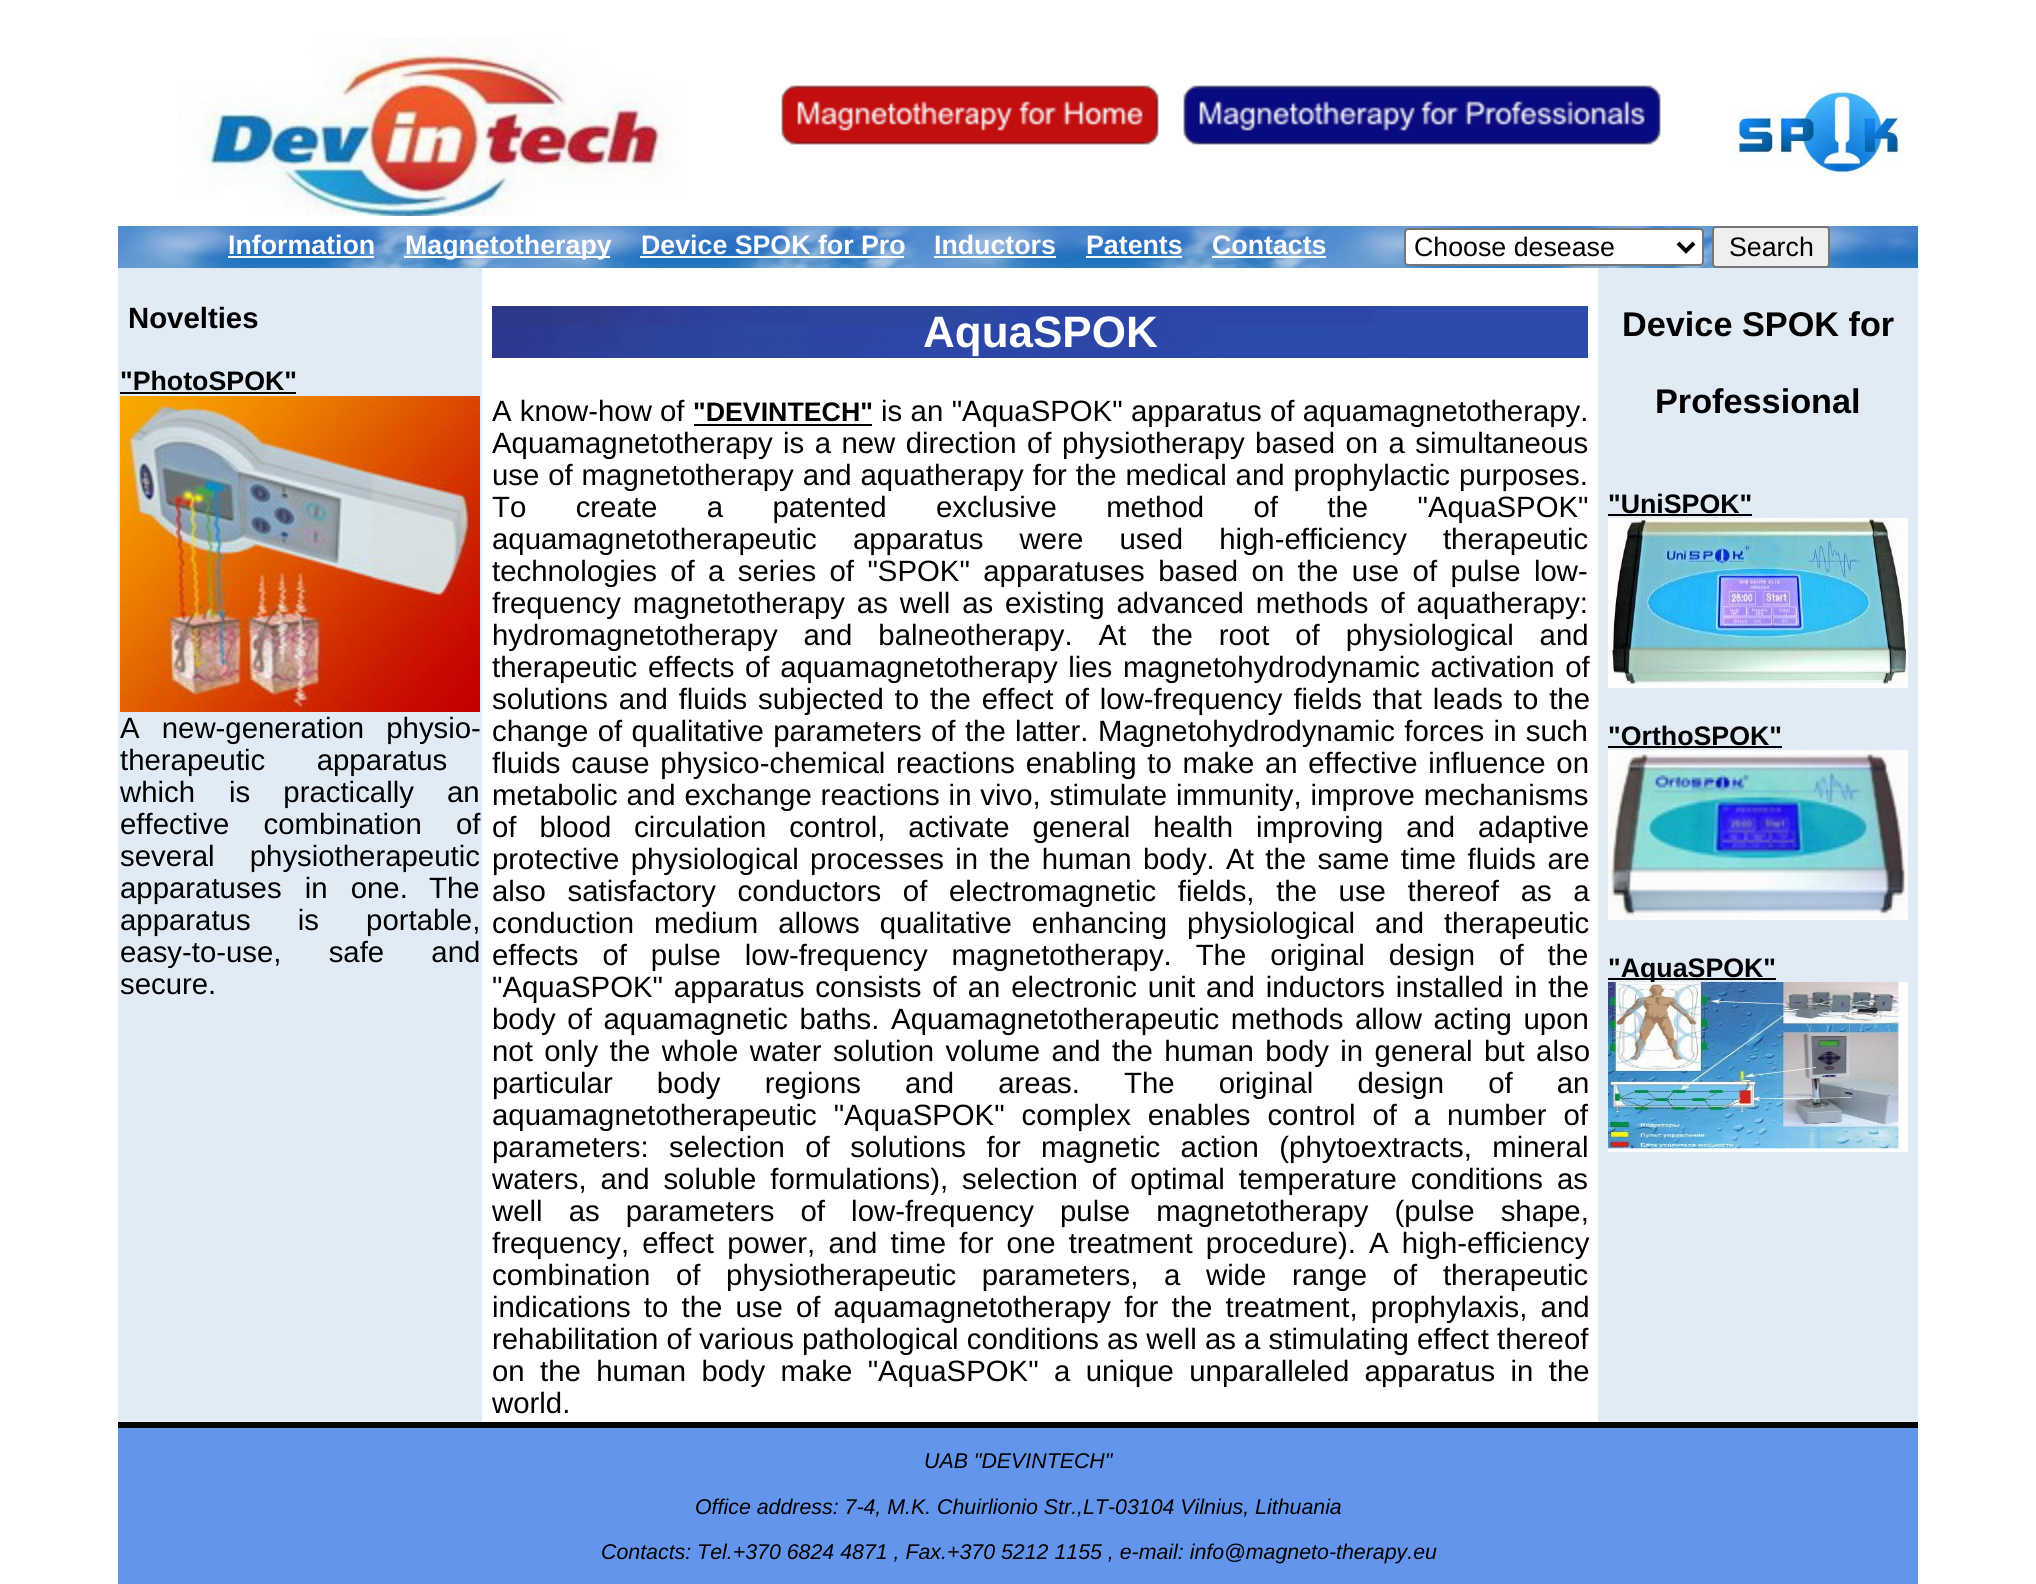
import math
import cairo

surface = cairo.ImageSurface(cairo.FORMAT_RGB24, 2036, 1584)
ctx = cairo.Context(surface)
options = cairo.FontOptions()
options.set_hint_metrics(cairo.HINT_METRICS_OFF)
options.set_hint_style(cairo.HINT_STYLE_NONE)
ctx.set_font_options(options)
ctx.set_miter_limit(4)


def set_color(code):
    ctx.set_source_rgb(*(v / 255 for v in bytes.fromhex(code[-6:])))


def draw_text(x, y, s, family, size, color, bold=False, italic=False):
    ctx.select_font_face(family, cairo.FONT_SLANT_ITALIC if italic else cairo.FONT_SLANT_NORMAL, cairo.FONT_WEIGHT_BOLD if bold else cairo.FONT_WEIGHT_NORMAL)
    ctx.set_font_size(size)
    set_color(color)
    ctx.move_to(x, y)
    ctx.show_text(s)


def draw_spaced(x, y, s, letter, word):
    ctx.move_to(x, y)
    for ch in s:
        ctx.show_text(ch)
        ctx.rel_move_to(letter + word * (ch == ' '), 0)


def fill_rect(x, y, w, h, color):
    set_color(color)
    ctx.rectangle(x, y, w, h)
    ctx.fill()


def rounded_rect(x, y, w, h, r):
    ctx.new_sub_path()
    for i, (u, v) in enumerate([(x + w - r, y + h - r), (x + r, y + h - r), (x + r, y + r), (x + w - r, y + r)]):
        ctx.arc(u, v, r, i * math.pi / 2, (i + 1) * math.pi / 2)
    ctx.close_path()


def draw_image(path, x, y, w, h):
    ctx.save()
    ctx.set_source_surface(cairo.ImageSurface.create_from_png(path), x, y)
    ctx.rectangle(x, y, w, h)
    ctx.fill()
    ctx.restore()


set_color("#ffffff")
ctx.paint()
draw_image("assets/img1.png", 178, 38, 503, 178)
draw_image("assets/img2.png", 781, 85, 378, 60)
draw_image("assets/img3.png", 1183, 85, 478, 60)
draw_image("assets/img4.png", 1732, 82, 170, 92)
draw_image("assets/img5.png", 118, 226, 1800, 42)
draw_text(228, 254, "Information", "Liberation Sans", 26.75, "#ffffff", bold=True)
fill_rect(228, 256, 146, 2, "#ffffff")
fill_rect(404, 256, 206, 2, "#ffffff")
draw_text(405, 254, "Magnetotherapy", "Liberation Sans", 26.75, "#ffffff", bold=True)
draw_text(641, 254, "Device SPOK for Pro", "Liberation Sans", 26.75, "#ffffff", bold=True)
fill_rect(640, 256, 264, 2, "#ffffff")
draw_text(934, 254, "Inductors", "Liberation Sans", 26.75, "#ffffff", bold=True)
fill_rect(934, 256, 122, 2, "#ffffff")
draw_text(1086, 254, "Patents", "Liberation Sans", 26.75, "#ffffff", bold=True)
fill_rect(1086, 256, 96, 2, "#ffffff")
draw_text(1212, 254, "Contacts", "Liberation Sans", 26.75, "#ffffff", bold=True)
fill_rect(1212, 256, 114, 2, "#ffffff")
rounded_rect(1405, 229, 298, 36, 3)
ctx.fill_preserve()
set_color("#767676")
ctx.stroke()
ctx.new_path()
ctx.move_to(1678, 243)
ctx.line_to(1686, 251)
ctx.line_to(1694, 243)
set_color("#000000")
ctx.set_line_width(4)
ctx.stroke()
draw_text(1414, 256, "Choose desease", "Liberation Sans", 26.75, "#000000")
set_color("#efefef")
rounded_rect(1713, 227, 116, 40, 3)
ctx.fill_preserve()
set_color("#767676")
ctx.set_line_width(2)
ctx.stroke()
draw_text(1729, 256, "Search", "Liberation Sans", 26.75, "#000000")
fill_rect(118, 268, 364, 1154, "#e0ebf6")
draw_text(128, 328, "Novelties", "Liberation Sans", 29.35, "#000000", bold=True)
draw_text(120, 390, "\"PhotoSPOK\"", "Liberation Sans", 26.75, "#000000", bold=True)
fill_rect(120, 392, 176, 2, "#000000")
draw_image("assets/img6.png", 120, 396, 360, 316)
ctx.select_font_face("Liberation Sans")
ctx.set_font_size(29.35)
draw_spaced(120, 738, "A new-generation physio-", 0, 14)
draw_spaced(120, 770, "therapeutic   apparatus", 0, 9)
draw_text(120, 802, "which", "Liberation Sans", 29.35, "#000000")
draw_spaced(229, 802, "is practically an", 0, 25)
draw_spaced(120, 834, "effective combination of", 0, 26)
draw_spaced(120, 866, "several physiotherapeutic", 0, 27)
draw_spaced(120, 898, "apparatuses in one.", 0, 15)
draw_text(429, 898, "The", "Liberation Sans", 29.35, "#000000")
draw_spaced(120, 930, "apparatus is portable,", 0, 39)
draw_spaced(120, 962, "easy-to-use, safe and", 0, 39)
draw_text(120, 994, "secure.", "Liberation Sans", 29.35, "#000000")
draw_image("assets/img7.png", 492, 306, 1096, 52)
draw_text(923, 347, "AquaSPOK", "Liberation Sans", 44, "#ffffff", bold=True)
draw_text(492, 421, "A know-how of", "Liberation Sans", 29.35, "#000000")
draw_text(693, 421, "\"DEVINTECH\"", "Liberation Sans", 26.75, "#000000", bold=True)
fill_rect(694, 424, 178, 2, "#000000")
ctx.select_font_face("Liberation Sans")
ctx.set_font_size(29.35)
draw_spaced(881, 421, "is an \"AquaSPOK\" apparatus of aquamagnetotherapy.", 0, 0.25)
draw_spaced(492, 453, "Aquamagnetotherapy is a new direction of physiotherapy based on a simultaneous", 0, 2.25)
draw_spaced(492, 485, "use of magnetotherapy and aquatherapy for the medical and prophylactic purposes.", 0, 0.75)
draw_spaced(492, 517, "To create a patented exclusive method of the \"AquaSPOK\"", 0, 41.25)
draw_spaced(492, 549, "aquamagnetotherapeutic apparatus were used high-efficiency therapeutic", 0, 28)
draw_spaced(492, 581, "technologies of a series of \"SPOK\" apparatuses based on the use of pulse low-", 0, 5.25)
draw_spaced(492, 613, "frequency magnetotherapy as well as existing advanced methods of aquatherapy:", 0, 3.75)
draw_spaced(492, 645, "hydromagnetotherapy and balneotherapy. At the root of physiological and", 0, 17.75)
draw_spaced(492, 677, "therapeutic effects of aquamagnetotherapy lies magnetohydrodynamic activation of", 0, 2.5)
draw_spaced(492, 709, "solutions and fluids subjected to the effect of low-frequency fields that leads to the", 0, 2.75)
draw_spaced(492, 741, "change of qualitative parameters of the latter. Magnetohydrodynamic forces in such", 0, 1.25)
draw_spaced(492, 773, "fluids cause physico-chemical reactions enabling to make an effective influence on", 0, 2.5)
draw_spaced(492, 805, "metabolic and exchange reactions in vivo, stimulate immunity, improve mechanisms", 0, 0.75)
draw_spaced(492, 837, "of blood circulation control, activate general health improving and adaptive", 0, 14.75)
draw_spaced(492, 869, "protective physiological processes in the human body. At the same time fluids are", 0, 3.25)
draw_spaced(492, 901, "also satisfactory conductors of electromagnetic fields, the use thereof as a", 0, 13.5)
draw_spaced(492, 933, "conduction medium allows qualitative enhancing physiological and therapeutic", 0, 11.75)
draw_spaced(492, 965, "effects of pulse low-frequency magnetotherapy. The original design of the", 0, 15.75)
draw_spaced(492, 997, "\"AquaSPOK\" apparatus consists of an electronic unit and inductors installed in the", 0, 2.75)
draw_spaced(492, 1029, "body of aquamagnetic baths. Aquamagnetotherapeutic methods allow acting upon", 0, 3.5)
draw_spaced(492, 1061, "not only the whole water solution volume and the human body in general but also", 0, 3.25)
draw_spaced(492, 1093, "particular body regions and areas. The original design of an", 0, 36)
draw_spaced(492, 1125, "aquamagnetotherapeutic \"AquaSPOK\" complex enables control of a number of", 0, 8.75)
draw_spaced(492, 1157, "parameters: selection of solutions for magnetic action (phytoextracts, mineral", 0, 12.25)
draw_spaced(492, 1189, "waters, and soluble formulations), selection of optimal temperature conditions as", 0, 5.75)
draw_spaced(492, 1221, "well as parameters of low-frequency pulse magnetotherapy (pulse shape,", 0, 18)
draw_spaced(492, 1253, "frequency, effect power, and time for one treatment procedure). A high-efficiency", 0, 5)
draw_spaced(492, 1285, "combination of physiotherapeutic parameters, a wide range of therapeutic", 0, 17.5)
draw_spaced(492, 1317, "indications to the use of aquamagnetotherapy for the treatment, prophylaxis, and", 0, 5)
draw_text(492, 1349, "rehabilitation of various pathological conditions as well as a stimulating effect thereof", "Liberation Sans", 29.35, "#000000")
draw_spaced(492, 1381, "on the human body make \"AquaSPOK\" a unique unparalleled apparatus in the", 0, 7.25)
draw_text(492, 1413, "world.", "Liberation Sans", 29.35, "#000000")
fill_rect(1598, 268, 320, 1154, "#e0ebf6")
draw_text(1622, 336, "Device SPOK for", "Liberation Sans", 34.25, "#000000", bold=True)
draw_text(1655, 413, "Professional", "Liberation Sans", 34.25, "#000000", bold=True)
draw_text(1608, 513, "\"UniSPOK\"", "Liberation Sans", 26.75, "#000000", bold=True)
fill_rect(1608, 514, 144, 2, "#000000")
draw_image("assets/img8.png", 1608, 518, 300, 170)
draw_text(1608, 745, "\"OrthoSPOK\"", "Liberation Sans", 26.75, "#000000", bold=True)
fill_rect(1608, 746, 174, 2, "#000000")
draw_image("assets/img9.png", 1608, 750, 300, 170)
fill_rect(1608, 978, 168, 2, "#000000")
draw_text(1608, 977, "\"AquaSPOK\"", "Liberation Sans", 26.75, "#000000", bold=True)
draw_image("assets/img10.png", 1608, 982, 300, 170)
fill_rect(118, 1428, 1800, 156, "#6495ed")
fill_rect(118, 1422, 1800, 6, "#000000")
draw_text(924, 1468, "UAB \"DEVINTECH\"", "Liberation Sans", 21.35, "#000000", italic=True)
draw_text(695, 1514, "Office address: 7-4, M.K. Chuirlionio Str.,LT-03104 Vilnius, Lithuania", "Liberation Sans", 21.35, "#000000", italic=True)
draw_text(601, 1559, "Contacts: Tel.+370 6824 4871 , Fax.+370 5212 1155 , e-mail: info@magneto-therapy.eu", "Liberation Sans", 21.35, "#000000", italic=True)
surface.write_to_png("output.png")
